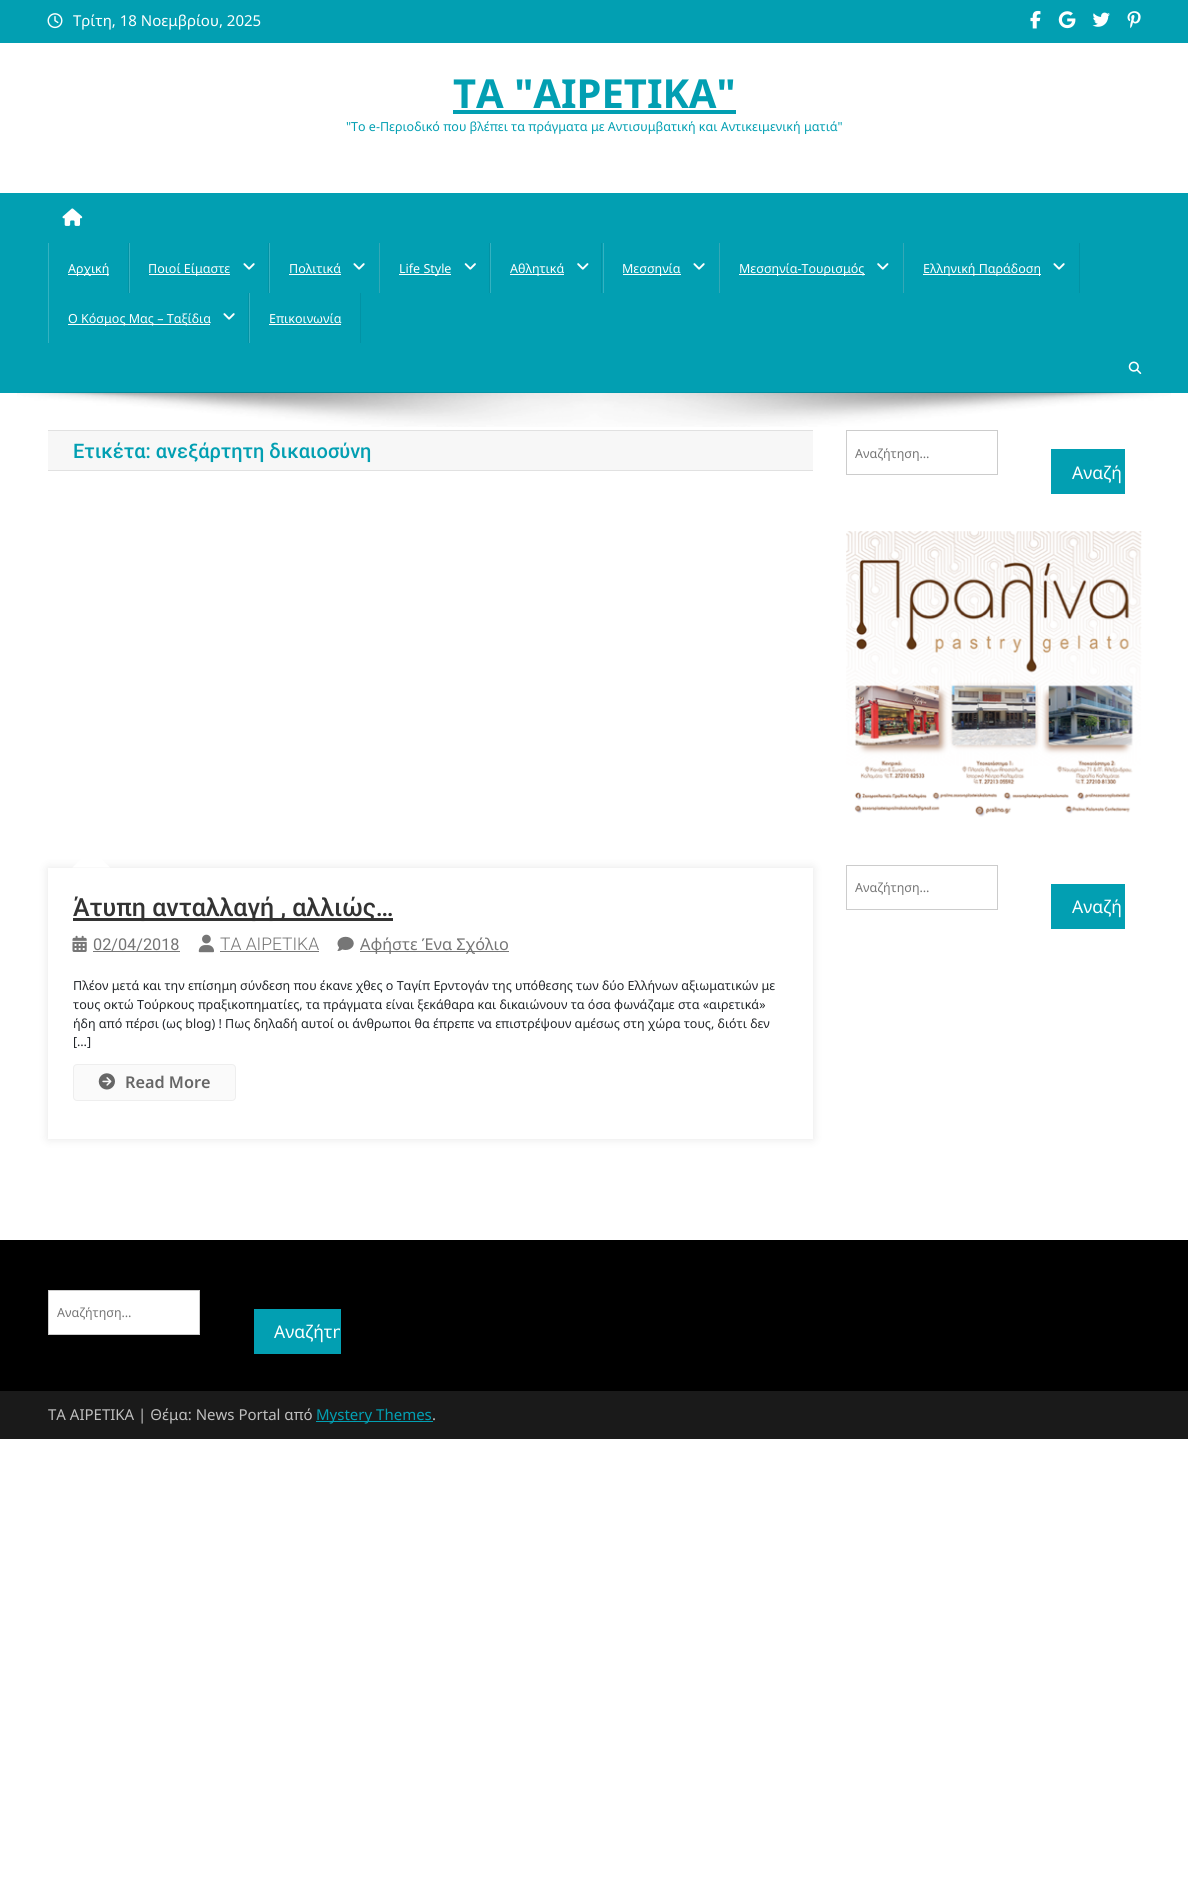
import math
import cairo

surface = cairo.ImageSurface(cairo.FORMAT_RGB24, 1188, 1902)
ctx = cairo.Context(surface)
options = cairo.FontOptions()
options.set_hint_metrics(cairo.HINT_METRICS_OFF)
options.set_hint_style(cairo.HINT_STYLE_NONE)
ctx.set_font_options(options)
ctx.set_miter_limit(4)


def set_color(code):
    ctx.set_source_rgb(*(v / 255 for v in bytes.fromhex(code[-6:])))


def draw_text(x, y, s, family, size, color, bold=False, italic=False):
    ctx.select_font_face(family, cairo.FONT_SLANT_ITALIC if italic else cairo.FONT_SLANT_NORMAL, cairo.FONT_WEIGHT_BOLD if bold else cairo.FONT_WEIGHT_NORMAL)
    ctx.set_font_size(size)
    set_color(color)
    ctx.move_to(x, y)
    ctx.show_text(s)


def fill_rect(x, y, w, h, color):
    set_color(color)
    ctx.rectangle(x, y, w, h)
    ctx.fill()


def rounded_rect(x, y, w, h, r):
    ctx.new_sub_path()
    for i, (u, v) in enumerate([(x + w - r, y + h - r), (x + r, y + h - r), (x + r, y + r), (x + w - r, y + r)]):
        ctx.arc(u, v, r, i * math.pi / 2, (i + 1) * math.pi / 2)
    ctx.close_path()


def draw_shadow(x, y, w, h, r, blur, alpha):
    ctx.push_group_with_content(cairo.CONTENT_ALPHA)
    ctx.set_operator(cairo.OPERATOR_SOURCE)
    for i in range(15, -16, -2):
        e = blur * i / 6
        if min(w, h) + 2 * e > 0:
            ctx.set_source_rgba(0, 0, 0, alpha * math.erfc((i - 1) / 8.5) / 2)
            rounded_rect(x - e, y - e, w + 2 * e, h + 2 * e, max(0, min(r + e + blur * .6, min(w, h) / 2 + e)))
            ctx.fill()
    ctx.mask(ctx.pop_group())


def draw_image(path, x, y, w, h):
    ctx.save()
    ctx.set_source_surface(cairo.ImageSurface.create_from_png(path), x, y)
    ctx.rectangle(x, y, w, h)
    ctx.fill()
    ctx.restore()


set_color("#ffffff")
ctx.paint()
fill_rect(0, 0, 1188, 43, "#029fb2")
draw_image("assets/img1.png", 47, 13, 16, 16)
draw_text(73, 26, "Τρίτη, 18 Νοεμβρίου, 2025", "Noto Sans", 15, "#ffffff")
draw_image("assets/img2.png", 1030, 10, 11, 19)
draw_image("assets/img3.png", 1058, 11, 18, 18)
draw_image("assets/img4.png", 1092, 12, 18, 15)
draw_image("assets/img5.png", 1127, 11, 14, 18)
draw_text(453, 108, "ΤΑ \"ΑΙΡΕΤΙΚΑ\"", "Noto Sans", 40, "#029fb2", bold=True)
fill_rect(453, 110, 283, 4, "#029fb2")
draw_text(346, 131, "\"Το e-Περιοδικό που βλέπει τα πράγματα με Αντισυμβατική και Αντικειμενική ματιά\"", "Noto Sans", 12.5, "#029fb2")
fill_rect(0, 193, 1188, 200, "#029fb2")
draw_image("assets/img6.png", 62, 208, 21, 18)
fill_rect(128, 243, 1, 50, "#0292a4")
fill_rect(48, 243, 1, 100, "#35b2c1")
fill_rect(68, 274, 41, 1, "#ffffff")
draw_text(68, 273, "Αρχική", "Noto Sans", 12.5, "#ffffff")
fill_rect(268, 243, 1, 50, "#0292a4")
fill_rect(129, 243, 1, 50, "#35b2c1")
fill_rect(149, 274, 81, 1, "#ffffff")
draw_text(148, 273, "Ποιοί Είμαστε", "Noto Sans", 12.5, "#ffffff")
draw_image("assets/img7.png", 243, 263, 12, 7)
fill_rect(269, 243, 1, 50, "#35b2c1")
draw_text(289, 273, "Πολιτικά", "Noto Sans", 12.5, "#ffffff")
fill_rect(289, 274, 52, 1, "#ffffff")
draw_image("assets/img7.png", 353, 263, 12, 7)
fill_rect(489, 243, 1, 50, "#0292a4")
fill_rect(379, 243, 1, 50, "#35a8b6")
fill_rect(399, 274, 52, 1, "#ffffff")
draw_text(399, 273, "Life Style", "Noto Sans", 12.5, "#ffffff")
draw_image("assets/img8.png", 464, 263, 12, 7)
fill_rect(601, 243, 1, 50, "#0292a4")
fill_rect(490, 243, 1, 50, "#35b2c1")
fill_rect(510, 274, 54, 1, "#ffffff")
draw_text(510, 273, "Aθλητικά", "Noto Sans", 12.5, "#ffffff")
draw_image("assets/img9.png", 577, 263, 12, 7)
fill_rect(603, 243, 1, 50, "#35b2c1")
fill_rect(623, 274, 58, 1, "#ffffff")
draw_text(622, 273, "Μεσσηνία", "Noto Sans", 12.5, "#ffffff")
draw_image("assets/img7.png", 693, 263, 12, 7)
fill_rect(719, 243, 1, 50, "#35a8b6")
fill_rect(739, 274, 126, 1, "#ffffff")
draw_text(739, 273, "Μεσσηνία-Τουρισμός", "Noto Sans", 12.5, "#ffffff")
draw_image("assets/img9.png", 877, 263, 12, 7)
fill_rect(1079, 243, 1, 50, "#0292a4")
fill_rect(903, 243, 1, 50, "#35a8b6")
fill_rect(923, 274, 118, 1, "#ffffff")
draw_text(923, 273, "Ελληνική Παράδοση", "Noto Sans", 12.5, "#ffffff")
draw_image("assets/img7.png", 1053, 263, 12, 7)
fill_rect(248, 293, 1, 50, "#0292a4")
fill_rect(68, 324, 142, 1, "#ffffff")
draw_text(68, 323, "O Κόσμος Μας – Ταξίδια", "Noto Sans", 12.5, "#ffffff")
draw_image("assets/img7.png", 223, 313, 12, 7)
fill_rect(360, 293, 1, 50, "#0292a4")
fill_rect(249, 293, 1, 50, "#35b2c1")
draw_text(269, 323, "Επικοινωνία", "Noto Sans", 12.5, "#ffffff")
fill_rect(269, 324, 72, 1, "#ffffff")
draw_image("assets/img10.png", 1128, 361, 14, 13)
draw_image("assets/img11.png", 17, 392, 1154, 35)
fill_rect(48, 431, 765, 39, "#f7f7f7")
fill_rect(48, 430, 765, 1, "#e1e1e1")
fill_rect(48, 470, 765, 1, "#e1e1e1")
draw_text(73, 458, "Ετικέτα: ανεξάρτητη δικαιοσύνη", "Roboto Medium", 20, "#029fb2")
ctx.save()
ctx.set_fill_rule(cairo.FILL_RULE_EVEN_ODD)
ctx.new_path()
ctx.move_to(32, 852)
ctx.line_to(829, 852)
ctx.line_to(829, 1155)
ctx.line_to(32, 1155)
ctx.close_path()
ctx.move_to(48, 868)
ctx.line_to(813, 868)
ctx.line_to(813, 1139)
ctx.line_to(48, 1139)
ctx.close_path()
ctx.clip()
set_color("#000000")
draw_shadow(48, 868, 765, 271, 0, 5, 0.1)
ctx.restore()
set_color("#ffffff")
ctx.new_path()
ctx.move_to(110, 867.5)
ctx.line_to(72.5, 867.5)
ctx.line_to(91, 849)
ctx.close_path()
ctx.fill()
fill_rect(73, 918, 320, 3, "#333333")
draw_text(73, 916, "Άτυπη ανταλλαγή , αλλιώς…", "Roboto Medium", 25, "#333333")
draw_image("assets/img12.png", 72, 935, 15, 17)
draw_text(93, 950, "02/04/2018", "Roboto", 16.25, "#757575")
fill_rect(93, 951, 87, 1, "#767676")
draw_image("assets/img13.png", 198, 934, 16, 19)
draw_text(220, 950, "ΤΑ ΑΙΡΕΤΙΚΑ", "Roboto Light", 17.5, "#757575")
fill_rect(220, 951, 99, 1, "#767676")
draw_image("assets/img14.png", 337, 936, 17, 15)
fill_rect(360, 951, 149, 1, "#767676")
draw_text(360, 950, "Αφήστε Ένα Σχόλιο", "Noto Sans", 16.25, "#757575")
draw_text(73, 990, "Πλέον μετά και την επίσημη σύνδεση που έκανε χθες ο Ταγίπ Ερντογάν της υπόθεσης των δύο Ελλήνων αξιωματικών με", "Noto Sans", 12.5, "#212529")
draw_text(73, 1009, "τους οκτώ Τούρκους πραξικοπηματίες, τα πράγματα είναι ξεκάθαρα και δικαιώνουν τα όσα φωνάζαμε στα «αιρετικά»", "Noto Sans", 12.5, "#212529")
draw_text(73, 1028, "ήδη από πέρσι (ως blog) ! Πως δηλαδή αυτοί οι άνθρωποι θα έπρεπε να επιστρέψουν αμέσως στη χώρα τους, διότι δεν", "Noto Sans", 12.5, "#212529")
draw_text(73, 1046, "[…]", "Noto Sans", 12.5, "#212529")
set_color("#fafafa")
rounded_rect(73.5, 1064.5, 162, 36, 3.5)
ctx.fill_preserve()
set_color("#eeeeee")
ctx.set_line_width(1)
ctx.stroke()
draw_image("assets/img15.png", 98, 1073, 17, 17)
draw_text(125, 1088, "Read More", "Noto Sans SemiBold", 16.25, "#666666")
ctx.rectangle(846.5, 430.5, 151, 44)
set_color("#cccccc")
ctx.stroke()
draw_text(855, 458, "Αναζήτηση…", "Noto Sans", 12.5, "#757575")
fill_rect(1051, 449, 74, 45, "#029fb2")
draw_text(1072, 479, "Αναζή", "Noto Sans", 17.5, "#ffffff")
draw_image("assets/img16.png", 846, 531, 296, 286)
ctx.rectangle(846.5, 865.5, 151, 44)
set_color("#cccccc")
ctx.stroke()
draw_text(855, 892, "Αναζήτηση…", "Noto Sans", 12.5, "#757575")
fill_rect(1051, 884, 74, 45, "#029fb2")
draw_text(1072, 913, "Αναζή", "Noto Sans", 17.5, "#ffffff")
fill_rect(0, 1240, 1188, 151, "#000000")
set_color("#ffffff")
ctx.rectangle(48.5, 1290.5, 151, 44)
ctx.fill_preserve()
set_color("#cccccc")
ctx.stroke()
draw_text(57, 1317, "Αναζήτηση…", "Noto Sans", 12.5, "#757575")
fill_rect(254, 1309, 87, 45, "#029fb2")
ctx.save()
ctx.rectangle(255, 1310, 85, 43)
ctx.clip()
draw_text(274, 1338, "Αναζήτη", "Noto Sans", 17.5, "#ffffff")
ctx.restore()
fill_rect(0, 1391, 1188, 48, "#1a1a1a")
draw_text(48, 1420, "ΤΑ ΑΙΡΕΤΙΚΑ | Θέμα: News Portal από", "Noto Sans", 15, "#bfbfbf")
fill_rect(316, 1421, 117, 1, "#029fb2")
draw_text(316, 1420, "Mystery Themes", "Noto Sans", 15, "#029fb2")
draw_text(432, 1420, ".", "Noto Sans", 15, "#bfbfbf")
surface.write_to_png("output.png")
